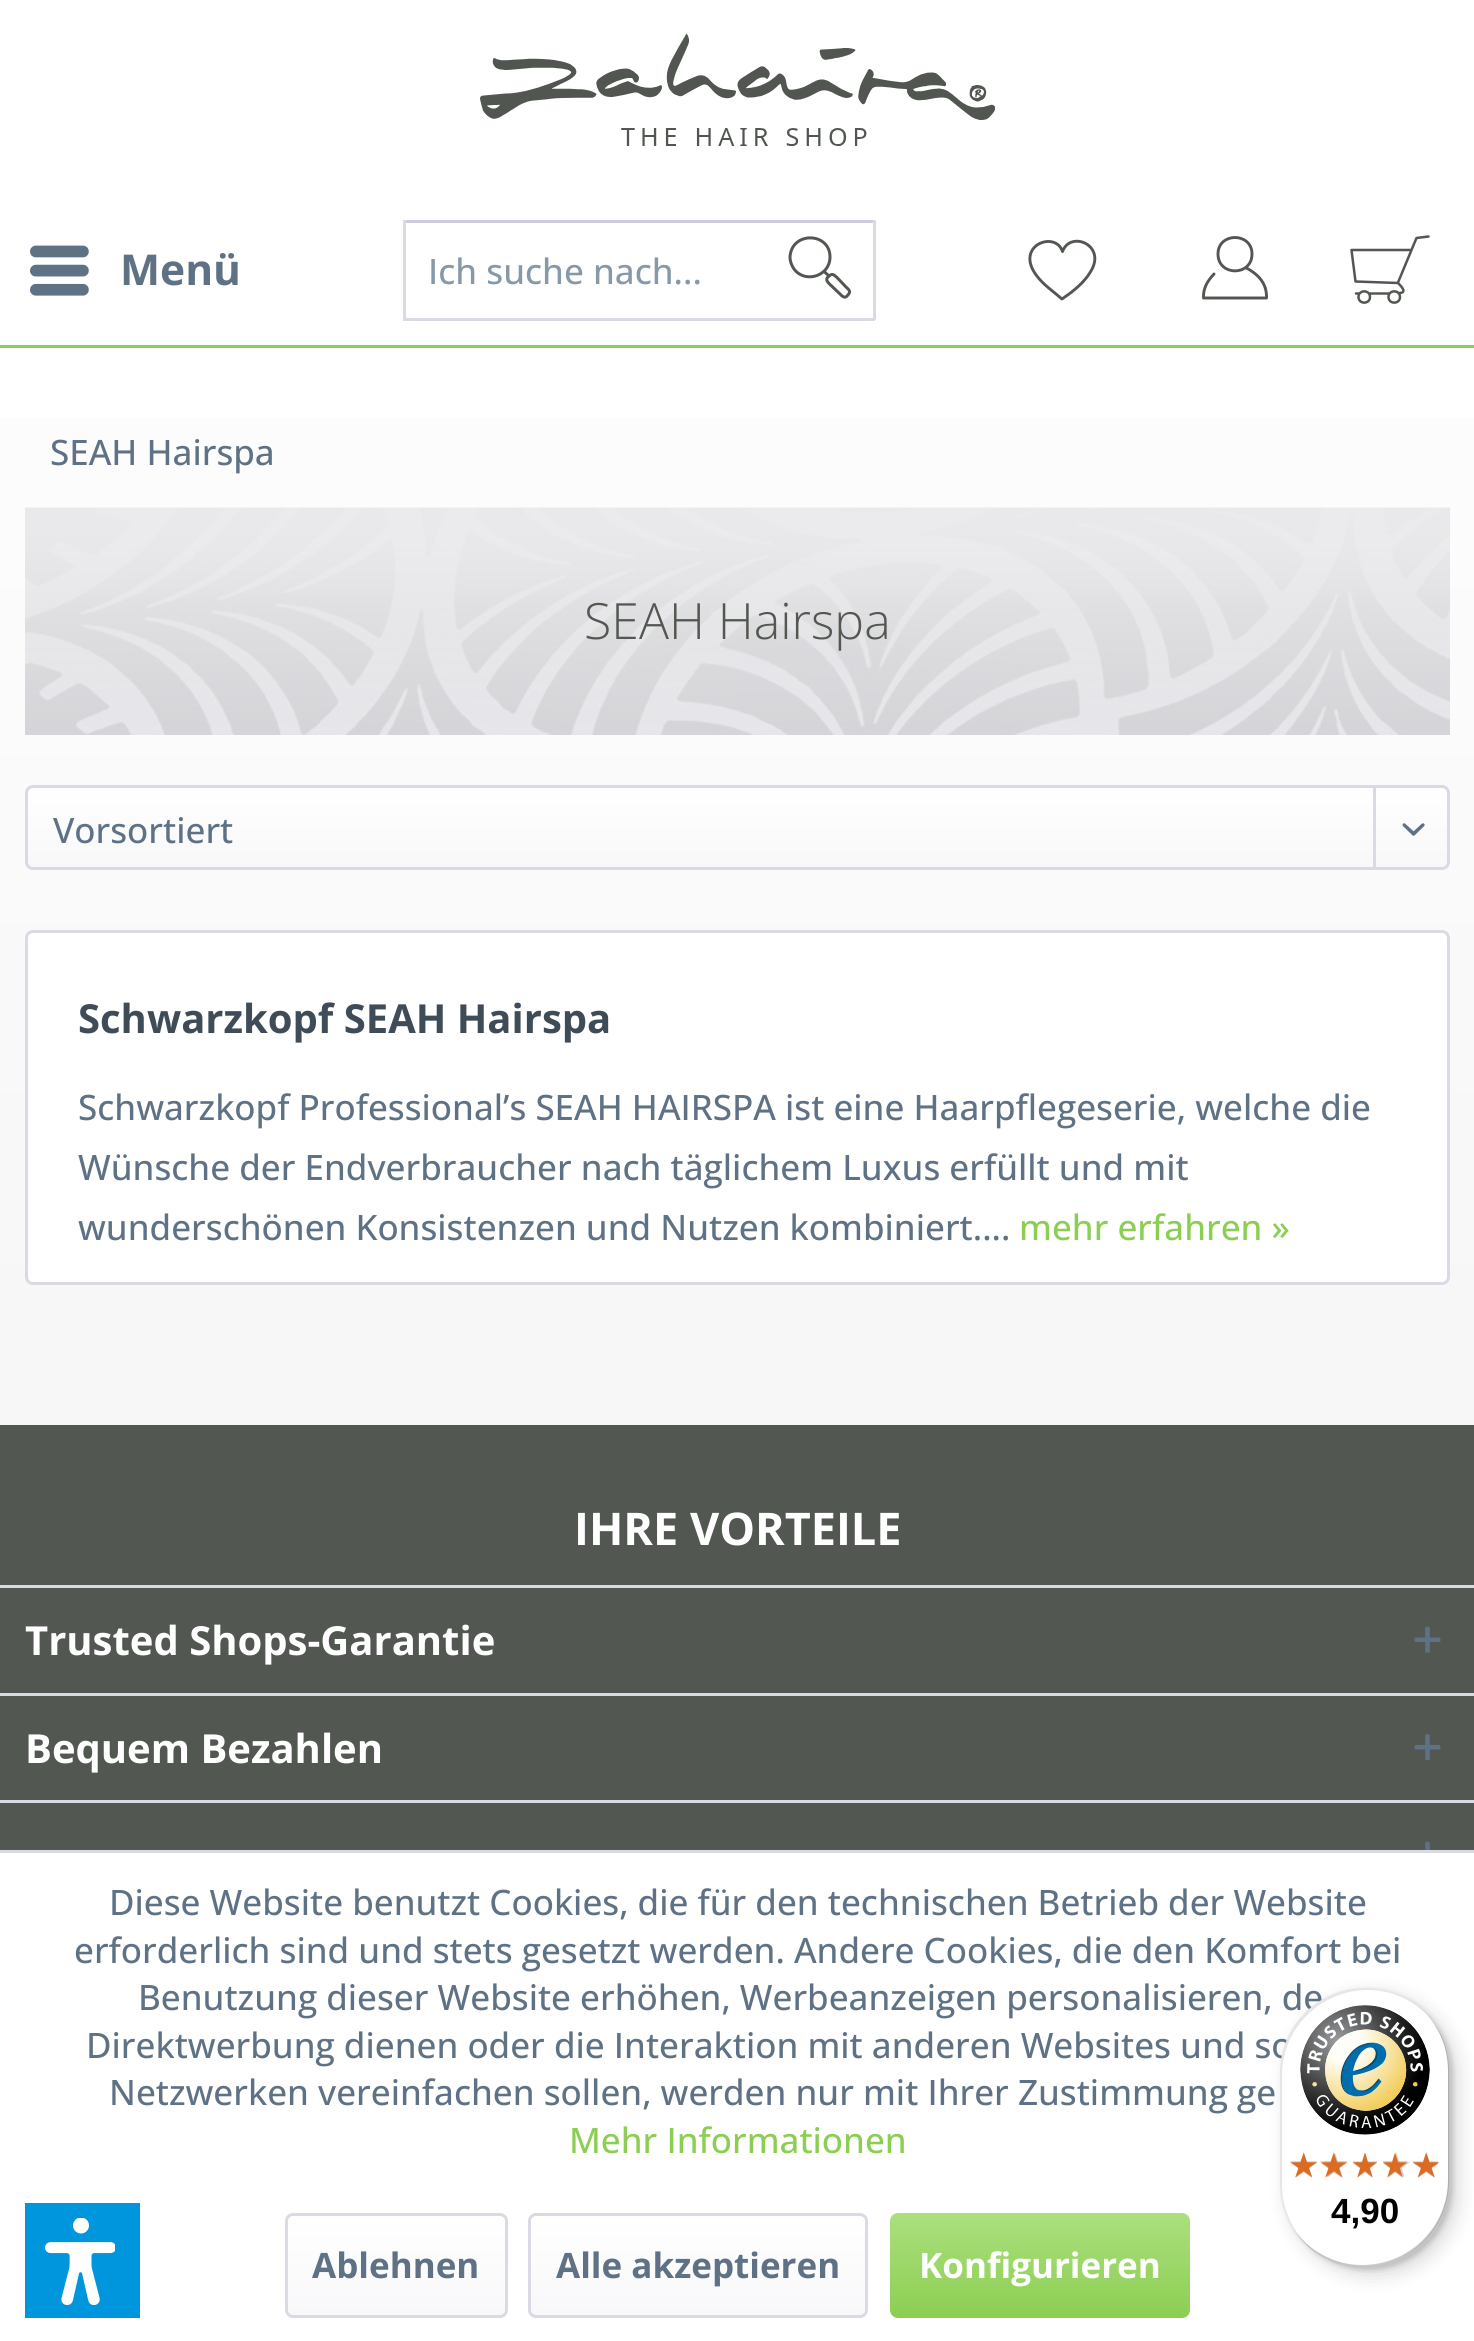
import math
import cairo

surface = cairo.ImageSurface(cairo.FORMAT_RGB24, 1474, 2341)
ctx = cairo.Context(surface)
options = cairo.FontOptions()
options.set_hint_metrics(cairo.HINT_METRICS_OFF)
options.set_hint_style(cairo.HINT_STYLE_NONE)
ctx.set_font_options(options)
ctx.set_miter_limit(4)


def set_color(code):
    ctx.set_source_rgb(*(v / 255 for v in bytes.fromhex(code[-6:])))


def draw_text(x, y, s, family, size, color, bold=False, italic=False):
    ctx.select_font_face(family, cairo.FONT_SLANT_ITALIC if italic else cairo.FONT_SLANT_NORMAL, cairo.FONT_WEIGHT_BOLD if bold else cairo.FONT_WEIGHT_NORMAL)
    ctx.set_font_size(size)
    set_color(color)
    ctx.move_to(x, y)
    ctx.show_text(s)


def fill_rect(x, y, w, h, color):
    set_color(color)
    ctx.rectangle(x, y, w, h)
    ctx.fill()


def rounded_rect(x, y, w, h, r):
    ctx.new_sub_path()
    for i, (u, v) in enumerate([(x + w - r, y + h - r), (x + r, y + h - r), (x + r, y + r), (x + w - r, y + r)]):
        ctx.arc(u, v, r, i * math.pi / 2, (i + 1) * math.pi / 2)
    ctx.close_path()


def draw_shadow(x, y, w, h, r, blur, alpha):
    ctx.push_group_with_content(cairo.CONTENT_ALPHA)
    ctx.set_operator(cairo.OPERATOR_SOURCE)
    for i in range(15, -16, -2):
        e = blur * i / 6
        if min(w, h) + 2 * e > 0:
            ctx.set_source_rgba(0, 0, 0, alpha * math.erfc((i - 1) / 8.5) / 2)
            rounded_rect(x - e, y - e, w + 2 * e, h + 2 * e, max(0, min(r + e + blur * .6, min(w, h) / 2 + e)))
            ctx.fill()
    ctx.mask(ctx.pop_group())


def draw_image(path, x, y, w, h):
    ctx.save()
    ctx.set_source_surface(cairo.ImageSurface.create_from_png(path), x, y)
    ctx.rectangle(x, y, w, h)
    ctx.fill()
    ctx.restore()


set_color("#ffffff")
ctx.paint()
fill_rect(0, 345, 1474, 3, "#8cce52")
draw_image("assets/img1.png", 480, 33, 515, 113)
draw_image("assets/img2.png", 30, 245, 59, 51)
draw_text(120, 285, "Menü", "Open Sans", 42.5, "#5f7285", bold=True)
fill_rect(403, 220, 472, 3, "#cbcbdb")
fill_rect(873, 220, 3, 100, "#dadae5")
fill_rect(403, 318, 472, 3, "#dadae5")
fill_rect(403, 220, 3, 100, "#dadae5")
draw_text(428, 284, "Ich suche nach...", "Open Sans Medium", 35, "#8798a9")
ctx.new_path()
ctx.move_to(823.5, 271)
ctx.line_to(829, 276)
ctx.move_to(828, 277)
ctx.curve_to(832, 273, 833, 274, 837, 277.5)
ctx.line_to(846, 287)
ctx.curve_to(850, 290.5, 851, 292, 847, 296)
ctx.curve_to(844.5, 299, 841.5, 295.5, 839.5, 293.5)
ctx.line_to(830, 284.5)
ctx.curve_to(828, 282.5, 825, 279.5, 828, 277)
ctx.close_path()
ctx.move_to(830, 257)
ctx.curve_to(830, 277.5, 802, 284.5, 792.5, 266.5)
ctx.curve_to(791, 263.5, 790, 260.5, 790, 257)
ctx.curve_to(791.5, 231, 830, 232, 830, 257)
ctx.close_path()
set_color("#525751")
ctx.set_line_width(3)
ctx.stroke()
ctx.new_path()
ctx.move_to(1062, 299)
ctx.curve_to(1073, 291.5, 1084.5, 282.5, 1091, 271)
ctx.curve_to(1106.5, 245, 1070.5, 230, 1062.5, 251.5)
ctx.curve_to(1055.5, 230, 1014, 245.5, 1036.5, 275.5)
ctx.curve_to(1043.5, 285, 1053.5, 291.5, 1062, 299)
ctx.close_path()
ctx.set_line_width(2.9)
ctx.set_line_cap(cairo.LINE_CAP_ROUND)
ctx.set_line_join(cairo.LINE_JOIN_ROUND)
ctx.stroke()
ctx.new_path()
ctx.move_to(1214, 274)
ctx.curve_to(1208, 280.5, 1203, 287.5, 1203.5, 298)
ctx.line_to(1266.5, 298)
ctx.curve_to(1267, 284, 1259, 274.5, 1245.5, 267.5)
ctx.move_to(1252, 254)
ctx.curve_to(1252, 276.5, 1218, 276.5, 1218, 254)
ctx.curve_to(1218, 232, 1252, 232, 1252, 254)
ctx.close_path()
ctx.stroke()
ctx.new_path()
ctx.move_to(1399, 293)
ctx.curve_to(1408, 293, 1401, 286, 1398, 283)
ctx.line_to(1355.5, 281.5)
ctx.line_to(1351.5, 250)
ctx.line_to(1411.5, 250)
ctx.line_to(1416.5, 238)
ctx.line_to(1428.5, 236.5)
ctx.move_to(1398, 282.5)
ctx.line_to(1411.5, 250)
ctx.move_to(1369, 293.5)
ctx.line_to(1389, 293.5)
ctx.move_to(1356, 293.5)
ctx.line_to(1359.5, 293.5)
ctx.move_to(1400, 297)
ctx.curve_to(1400, 304.5, 1388.5, 304.5, 1388.5, 297)
ctx.curve_to(1388.5, 289.5, 1400, 289.5, 1400, 297)
ctx.close_path()
ctx.move_to(1370, 297)
ctx.curve_to(1370, 304.5, 1358.5, 304.5, 1358.5, 297)
ctx.curve_to(1358.5, 289.5, 1370, 289.5, 1370, 297)
ctx.close_path()
ctx.set_line_width(2.5)
ctx.stroke()
gradient = cairo.LinearGradient(737, 0, 738, 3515)
gradient.add_color_stop_rgba(0, 1, 1, 1, 1)
gradient.add_color_stop_rgba(1, 0.929, 0.918, 0.929, 1)
ctx.set_source(gradient)
ctx.rectangle(0, 418, 1474, 1007)
ctx.fill()
draw_text(50, 465, "SEAH Hairspa", "Open Sans Medium", 35, "#5f7285")
draw_image("assets/img3.png", 25, 507, 1425, 228)
draw_text(584, 639, "SEAH Hairspa", "Open Sans Light", 50, "#525751")
gradient = cairo.LinearGradient(738, 787, 738, 868)
gradient.add_color_stop_rgba(0, 1, 1, 1, 1)
gradient.add_color_stop_rgba(1, 0.973, 0.973, 0.98, 1)
ctx.set_source(gradient)
rounded_rect(28, 788, 1420, 80, 5)
ctx.fill()
rounded_rect(26.5, 786.5, 1422, 82, 6.5)
set_color("#dadae5")
ctx.set_line_width(3)
ctx.set_line_cap(cairo.LINE_CAP_BUTT)
ctx.set_line_join(cairo.LINE_JOIN_MITER)
ctx.stroke()
draw_text(53, 843, "Vorsortiert", "Open Sans Medium", 35, "#5f7285")
fill_rect(1373, 788, 3, 82, "#dadae5")
draw_image("assets/img4.png", 1402, 823, 23, 13)
set_color("#ffffff")
rounded_rect(26.5, 931.5, 1422, 352, 6.5)
ctx.fill_preserve()
set_color("#dadae5")
ctx.stroke()
draw_text(78, 1033, "Schwarzkopf SEAH Hairspa", "Open Sans", 40, "#3f4c58", bold=True)
draw_text(78, 1120, "Schwarzkopf Professional’s SEAH HAIRSPA ist eine Haarpflegeserie, welche die", "Open Sans Medium", 35, "#5f7285")
draw_text(78, 1180, "Wünsche der Endverbraucher nach täglichem Luxus erfüllt und mit", "Open Sans Medium", 35, "#5f7285")
draw_text(78, 1240, "wunderschönen Konsistenzen und Nutzen kombiniert....", "Open Sans Medium", 35, "#5f7285")
draw_text(1019, 1240, "mehr erfahren »", "Open Sans Medium", 35, "#8cce52")
fill_rect(0, 1425, 1474, 425, "#525751")
draw_text(574, 1545, "IHRE VORTEILE", "Open Sans", 45, "#ffffff", bold=True)
fill_rect(0, 1585, 1474, 3, "#dadae5")
draw_text(25, 1655, "Trusted Shops-Garantie", "Open Sans", 40, "#ffffff", bold=True)
draw_image("assets/img5.png", 1414, 1626, 27, 27)
fill_rect(0, 1693, 1474, 3, "#dadae5")
draw_text(25, 1763, "Bequem Bezahlen", "Open Sans", 40, "#ffffff", bold=True)
draw_image("assets/img6.png", 1414, 1734, 27, 27)
fill_rect(0, 1800, 1474, 3, "#dadae5")
draw_image("assets/img7.png", 1425, 1841, 5, 9)
fill_rect(0, 1850, 1474, 3, "#dadae5")
draw_text(109, 1915, "Diese Website benutzt Cookies, die für den technischen Betrieb der Website", "Open Sans Medium", 35, "#5f7285")
draw_text(74, 1963, "erforderlich sind und stets gesetzt werden. Andere Cookies, die den Komfort bei", "Open Sans Medium", 35, "#5f7285")
draw_text(138, 2010, "Benutzung dieser Website erhöhen, Werbeanzeigen personalisieren, de", "Open Sans Medium", 35, "#5f7285")
draw_text(86, 2058, "Direktwerbung dienen oder die Interaktion mit anderen Websites und so", "Open Sans Medium", 35, "#5f7285")
draw_text(109, 2105, "Netzwerken vereinfachen sollen, werden nur mit Ihrer Zustimmung ge", "Open Sans Medium", 35, "#5f7285")
draw_text(569, 2153, "Mehr Informationen", "Open Sans Medium", 35, "#8cce52")
gradient = cairo.LinearGradient(396, 2215, 396, 2315)
gradient.add_color_stop_rgba(0, 1, 1, 1, 1)
gradient.add_color_stop_rgba(1, 0.973, 0.973, 0.98, 1)
ctx.set_source(gradient)
rounded_rect(288, 2215, 217, 100, 5)
ctx.fill()
rounded_rect(286.5, 2214.5, 220, 102, 6.5)
set_color("#dadae5")
ctx.stroke()
draw_text(312, 2278, "Ablehnen", "Open Sans", 35, "#5f7285", bold=True)
gradient = cairo.LinearGradient(698, 2215, 698, 2315)
gradient.add_color_stop_rgba(0, 1, 1, 1, 1)
gradient.add_color_stop_rgba(1, 0.973, 0.973, 0.98, 1)
ctx.set_source(gradient)
rounded_rect(530, 2215, 335, 100, 5)
ctx.fill()
rounded_rect(529.5, 2214.5, 337, 102, 6.5)
set_color("#dadae5")
ctx.stroke()
draw_text(556, 2278, "Alle akzeptieren", "Open Sans", 35, "#5f7285", bold=True)
gradient = cairo.LinearGradient(1040, 2213, 1040, 2318)
gradient.add_color_stop_rgba(0, 0.671, 0.878, 0.494, 1)
gradient.add_color_stop_rgba(1, 0.549, 0.808, 0.322, 1)
ctx.set_source(gradient)
rounded_rect(890, 2213, 300, 105, 8)
ctx.fill()
draw_text(919, 2278, "Konfigurieren", "Open Sans", 35, "#ffffff", bold=True)
fill_rect(25, 2203, 115, 115, "#0096de")
draw_image("assets/img8.png", 45, 2218, 70, 87)
set_color("#000000")
draw_shadow(1288, 1995, 170, 280, 85, 10, 0.15)
draw_shadow(1283, 1990, 170, 280, 85, 2.5, 0.15)
set_color("#ffffff")
rounded_rect(1280, 1988, 170, 280, 85)
ctx.fill()
ctx.set_source_rgba(0, 0, 0, 0.1)
ctx.new_path()
ctx.move_to(1368, 1990)
ctx.curve_to(1389, 1990, 1408, 1998, 1423, 2011)
ctx.curve_to(1408, 1997, 1388, 1988, 1365, 1988)
ctx.curve_to(1318, 1988, 1280, 2026, 1280, 2073)
ctx.line_to(1280, 2183)
ctx.curve_to(1280, 2211, 1293, 2235, 1314, 2251)
ctx.curve_to(1295, 2235, 1282, 2212, 1282, 2185)
ctx.line_to(1282, 2075)
ctx.curve_to(1282, 2028, 1321, 1990, 1368, 1990)
ctx.close_path()
ctx.fill()
ctx.set_source_rgba(0, 0, 0, 0.2)
ctx.new_path()
ctx.move_to(1294, 2230)
ctx.curve_to(1309, 2253, 1335, 2268, 1365, 2268)
ctx.curve_to(1412, 2268, 1450, 2230, 1450, 2183)
ctx.line_to(1450, 2073)
ctx.curve_to(1450, 2053, 1443, 2034, 1431, 2020)
ctx.curve_to(1442, 2034, 1448, 2051, 1448, 2070)
ctx.line_to(1448, 2180)
ctx.curve_to(1448, 2227, 1409, 2265, 1362, 2265)
ctx.curve_to(1334, 2265, 1310, 2251, 1294, 2230)
ctx.close_path()
ctx.fill()
ctx.set_source_rgba(0.196, 0.196, 0.196, 0.2)
ctx.new_path()
ctx.move_to(1298, 2236)
ctx.curve_to(1314, 2255, 1338, 2268, 1365, 2268)
ctx.curve_to(1412, 2268, 1450, 2230, 1450, 2183)
ctx.line_to(1450, 2073)
ctx.curve_to(1450, 2050, 1441, 2029, 1426, 2014)
ctx.curve_to(1440, 2029, 1448, 2049, 1448, 2071)
ctx.line_to(1448, 2181)
ctx.curve_to(1448, 2228, 1410, 2266, 1364, 2266)
ctx.curve_to(1338, 2266, 1314, 2254, 1298, 2236)
ctx.close_path()
ctx.fill()
ctx.set_source_rgba(1, 1, 1, 0.3)
ctx.new_path()
ctx.move_to(1289, 2221)
ctx.curve_to(1303, 2249, 1332, 2268, 1365, 2268)
ctx.curve_to(1412, 2268, 1450, 2230, 1450, 2183)
ctx.line_to(1450, 2073)
ctx.curve_to(1450, 2059, 1447, 2046, 1441, 2035)
ctx.curve_to(1446, 2046, 1449, 2058, 1449, 2071)
ctx.line_to(1449, 2181)
ctx.curve_to(1449, 2228, 1411, 2266, 1364, 2266)
ctx.curve_to(1331, 2266, 1303, 2248, 1289, 2221)
ctx.close_path()
ctx.fill()
draw_image("assets/img9.png", 1300, 2005, 130, 130)
draw_image("assets/img10.png", 1290, 2153, 27, 24)
draw_image("assets/img11.png", 1323, 2153, 24, 25)
draw_image("assets/img12.png", 1353, 2153, 24, 24)
draw_image("assets/img13.png", 1383, 2152, 27, 26)
draw_image("assets/img14.png", 1413, 2153, 27, 24)
draw_image("assets/img15.png", 1290, 2152, 27, 26)
draw_image("assets/img16.png", 1320, 2152, 27, 26)
draw_image("assets/img17.png", 1353, 2152, 24, 26)
draw_image("assets/img18.png", 1383, 2152, 24, 26)
draw_image("assets/img19.png", 1413, 2152, 25, 26)
draw_text(1331, 2223, "4,90", "Liberation Sans", 35, "#000000", bold=True)
surface.write_to_png("output.png")
